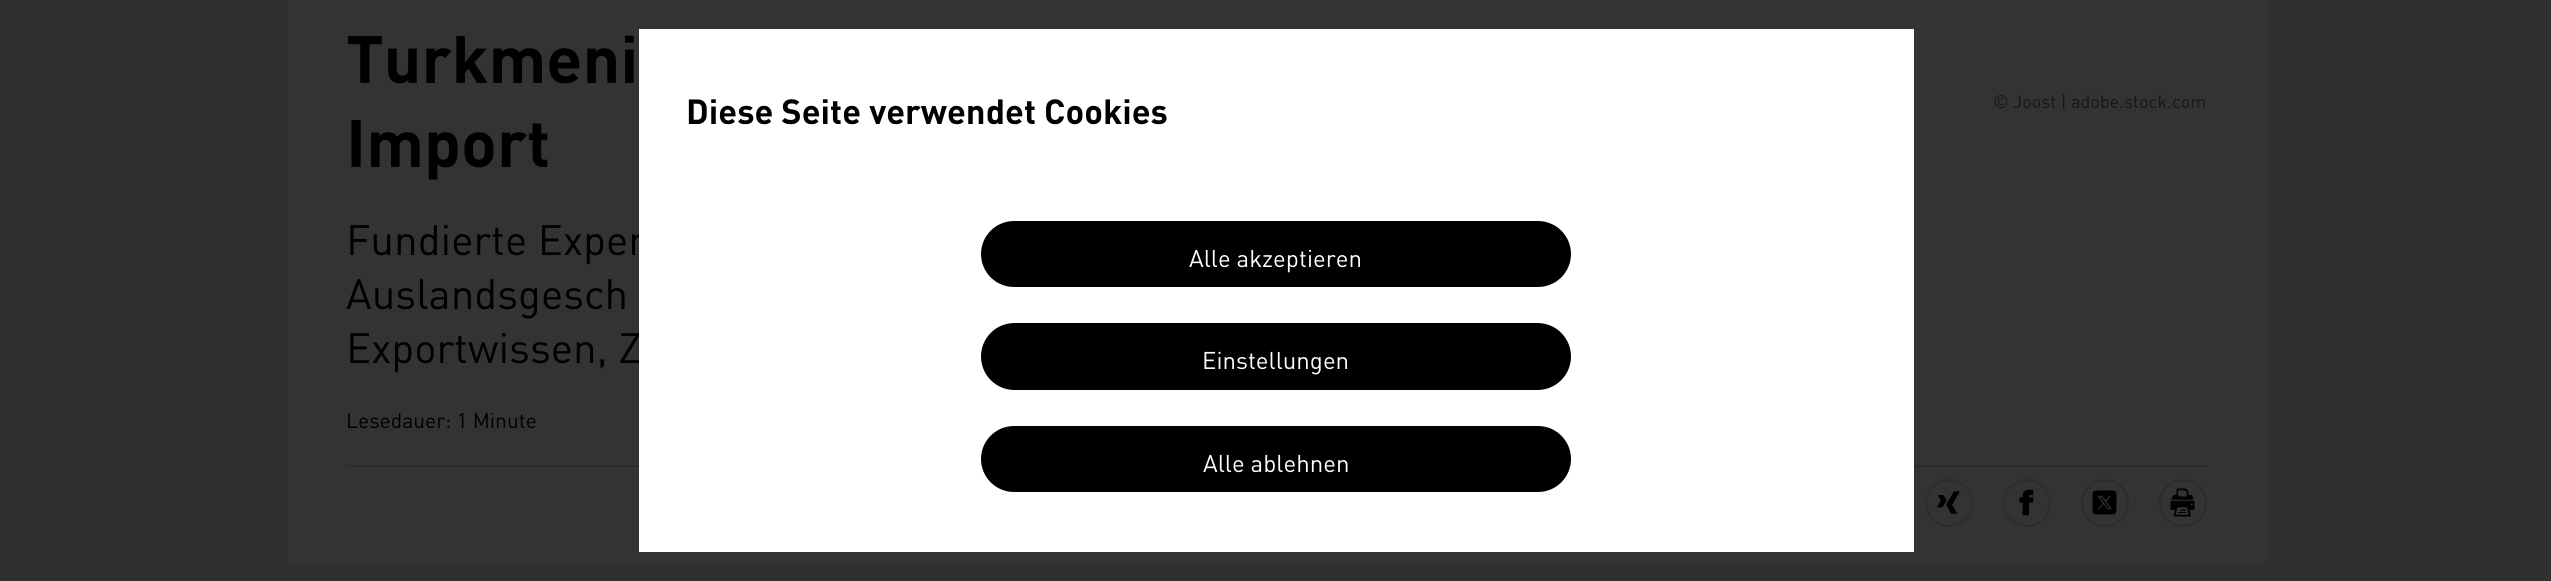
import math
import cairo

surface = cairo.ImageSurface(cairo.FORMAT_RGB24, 2551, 581)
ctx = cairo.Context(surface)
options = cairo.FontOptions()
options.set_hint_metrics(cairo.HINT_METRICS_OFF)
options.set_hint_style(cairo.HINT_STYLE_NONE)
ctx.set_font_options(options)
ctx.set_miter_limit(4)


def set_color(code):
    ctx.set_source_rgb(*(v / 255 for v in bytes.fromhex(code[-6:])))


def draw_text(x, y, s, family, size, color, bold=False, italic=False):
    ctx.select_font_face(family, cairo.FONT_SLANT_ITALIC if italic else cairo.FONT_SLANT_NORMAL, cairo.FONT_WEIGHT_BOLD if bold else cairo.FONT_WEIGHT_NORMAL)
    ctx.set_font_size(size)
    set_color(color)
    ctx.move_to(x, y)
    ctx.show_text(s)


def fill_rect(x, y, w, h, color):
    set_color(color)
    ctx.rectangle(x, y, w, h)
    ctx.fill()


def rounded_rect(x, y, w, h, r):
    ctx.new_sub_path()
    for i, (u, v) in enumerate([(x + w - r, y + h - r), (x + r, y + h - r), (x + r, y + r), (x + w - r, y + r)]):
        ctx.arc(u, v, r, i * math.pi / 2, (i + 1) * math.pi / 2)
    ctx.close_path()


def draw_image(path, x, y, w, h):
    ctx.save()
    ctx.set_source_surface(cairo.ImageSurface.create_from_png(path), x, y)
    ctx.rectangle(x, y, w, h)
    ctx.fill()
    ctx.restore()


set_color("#30302f")
ctx.paint()
fill_rect(287, 0, 1980, 564, "#333333")
draw_text(346, 83, "Turkmeni", "DIN", 66, "#000000", bold=True)
draw_text(346, 167, "Import", "DIN", 66, "#000000", bold=True)
draw_text(1993, 108, "© Joost | adobe.stock.com", "DIN", 18, "#161616")
draw_text(346, 255, "Fundierte Exper", "DIN", 42, "#000000")
draw_text(346, 309, "Auslandsgesch", "DIN", 42, "#000000")
draw_text(346, 363, "Exportwissen, Z", "DIN", 42, "#000000")
draw_text(346, 428, "Lesedauer: 1 Minute", "DIN", 21, "#000000")
fill_rect(347, 465, 1860, 2, "#2c2c2c")
ctx.new_path()
ctx.arc(1949, 503, 23, 0, 2 * math.pi)
ctx.stroke()
draw_image("assets/img1.png", 1937, 491, 23, 23)
ctx.arc(2027, 503, 23, 0, 2 * math.pi)
ctx.stroke()
draw_image("assets/img2.png", 2019, 489, 15, 27)
ctx.arc(2105, 503, 23, 0, 2 * math.pi)
ctx.stroke()
draw_image("assets/img3.png", 2092, 490, 25, 25)
ctx.arc(2183, 503, 23, 0, 2 * math.pi)
ctx.stroke()
draw_image("assets/img4.png", 2170, 488, 25, 29)
fill_rect(639, 29, 1275, 523, "#ffffff")
draw_text(686, 124, "Diese Seite verwendet Cookies", "DIN", 34.5, "#000000", bold=True)
rounded_rect(982, 222, 588, 64, 32)
ctx.fill_preserve()
ctx.stroke()
draw_text(1189, 267, "Alle akzeptieren", "DIN", 24, "#ffffff")
set_color("#000000")
rounded_rect(982, 324, 588, 65, 32.5)
ctx.fill_preserve()
ctx.stroke()
draw_text(1202, 369, "Einstellungen", "DIN", 24, "#ffffff")
set_color("#000000")
rounded_rect(982, 427, 588, 64, 32)
ctx.fill_preserve()
ctx.stroke()
draw_text(1203, 472, "Alle ablehnen", "DIN", 24, "#ffffff")
surface.write_to_png("output.png")
